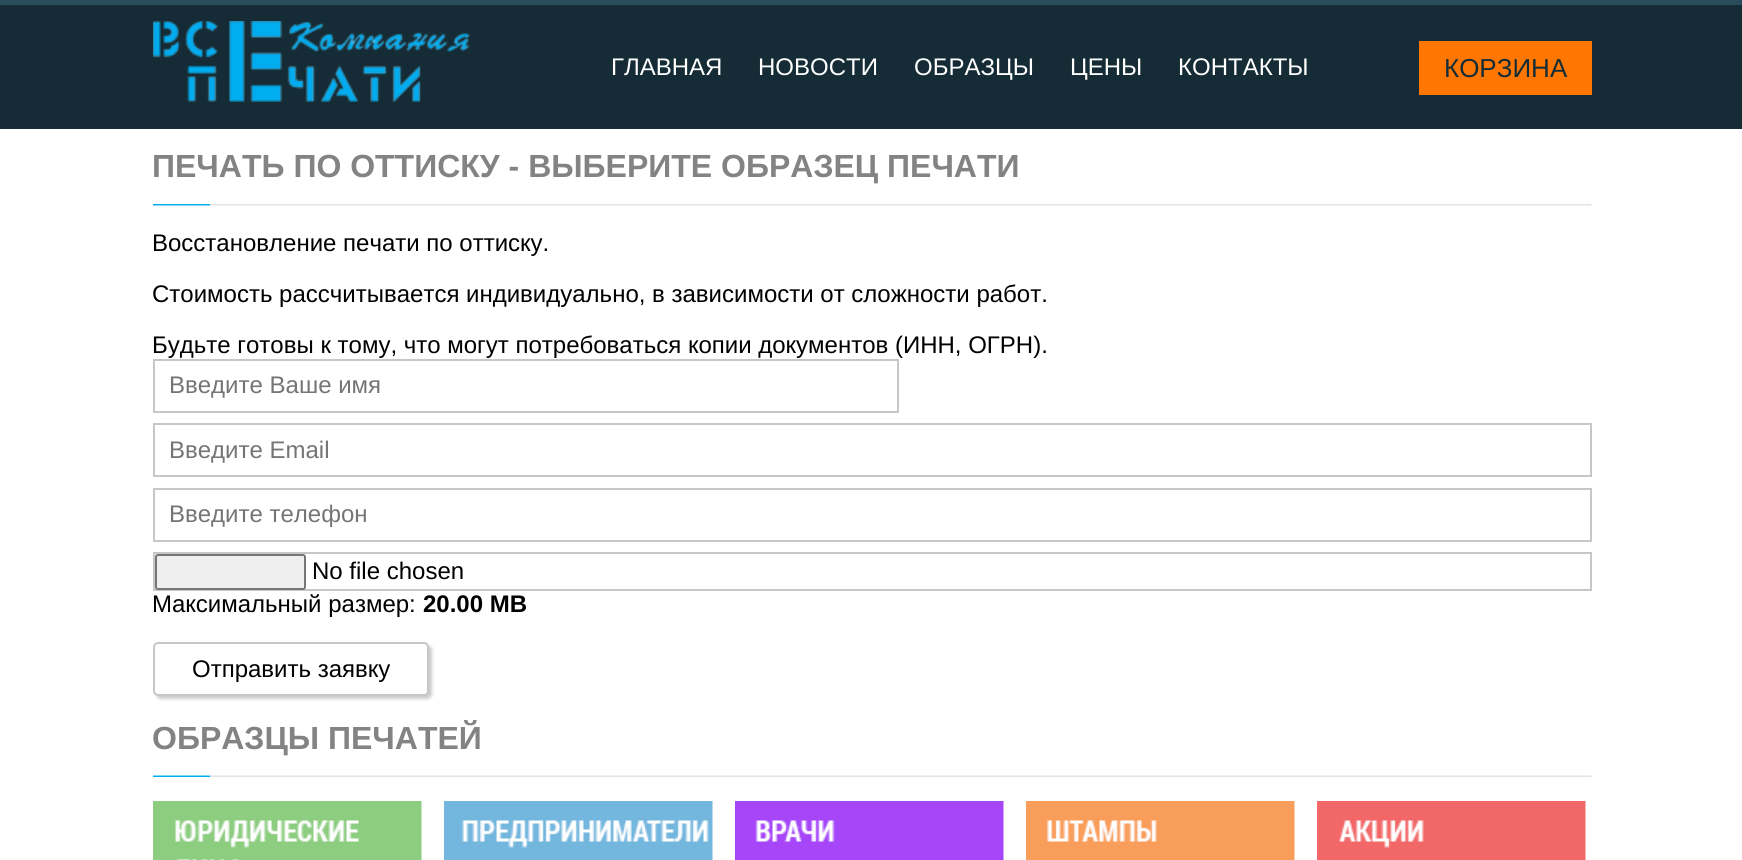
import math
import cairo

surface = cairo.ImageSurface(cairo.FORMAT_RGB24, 1742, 860)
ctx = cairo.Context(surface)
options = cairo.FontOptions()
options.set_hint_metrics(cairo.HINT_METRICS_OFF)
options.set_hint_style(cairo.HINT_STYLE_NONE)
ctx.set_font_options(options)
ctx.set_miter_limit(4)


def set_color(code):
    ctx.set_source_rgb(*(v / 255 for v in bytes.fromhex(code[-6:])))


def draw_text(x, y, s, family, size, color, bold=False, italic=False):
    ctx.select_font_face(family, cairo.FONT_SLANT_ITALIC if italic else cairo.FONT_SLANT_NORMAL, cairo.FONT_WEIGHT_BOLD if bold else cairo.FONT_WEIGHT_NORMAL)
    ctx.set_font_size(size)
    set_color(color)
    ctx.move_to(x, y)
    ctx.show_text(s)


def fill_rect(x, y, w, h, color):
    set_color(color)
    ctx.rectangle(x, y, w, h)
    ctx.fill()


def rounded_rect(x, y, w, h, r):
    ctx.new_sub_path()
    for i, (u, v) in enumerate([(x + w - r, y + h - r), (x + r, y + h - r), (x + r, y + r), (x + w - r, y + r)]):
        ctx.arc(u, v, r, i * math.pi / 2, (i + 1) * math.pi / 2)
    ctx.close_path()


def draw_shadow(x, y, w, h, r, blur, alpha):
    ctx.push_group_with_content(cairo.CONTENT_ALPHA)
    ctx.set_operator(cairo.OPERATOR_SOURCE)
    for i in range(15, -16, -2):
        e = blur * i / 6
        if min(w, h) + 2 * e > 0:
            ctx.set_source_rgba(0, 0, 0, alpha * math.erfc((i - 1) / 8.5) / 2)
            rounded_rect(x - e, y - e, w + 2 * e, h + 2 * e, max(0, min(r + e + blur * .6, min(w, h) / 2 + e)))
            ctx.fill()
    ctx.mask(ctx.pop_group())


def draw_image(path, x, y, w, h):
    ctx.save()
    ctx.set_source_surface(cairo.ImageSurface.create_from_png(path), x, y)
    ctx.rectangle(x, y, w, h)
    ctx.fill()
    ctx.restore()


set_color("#ffffff")
ctx.paint()
fill_rect(0, 5, 1742, 124, "#152c36")
fill_rect(0, 0, 1742, 5, "#2a4d5c")
draw_image("assets/img1.png", 153, 21, 317, 81)
draw_text(611, 75, "ГЛАВНАЯ", "Liberation Sans", 24, "#ffffff")
draw_text(758, 75, "НОВОСТИ", "Liberation Sans", 24, "#ffffff")
draw_text(914, 75, "ОБРАЗЦЫ", "Liberation Sans", 24, "#ffffff")
draw_text(1070, 75, "ЦЕНЫ", "Liberation Sans", 24, "#ffffff")
draw_text(1178, 75, "КОНТАКТЫ", "Liberation Sans", 24, "#ffffff")
fill_rect(1419, 41, 173, 54, "#ff7700")
draw_text(1444, 77, "КОРЗИНА", "Liberation Sans", 26, "#152c36")
draw_image("assets/img2.png", 153, 204, 1439, 2)
draw_text(152, 177, "ПЕЧАТЬ ПО ОТТИСКУ - ВЫБЕРИТЕ ОБРАЗЕЦ ПЕЧАТИ", "Liberation Sans", 32, "#838383", bold=True)
draw_text(152, 251, "Восстановление печати по оттиску.", "Liberation Sans", 24, "#000000")
draw_text(152, 302, "Стоимость рассчитывается индивидуально, в зависимости от сложности работ.", "Liberation Sans", 24, "#000000")
draw_text(152, 353, "Будьте готовы к тому, что могут потребоваться копии документов (ИНН, ОГРН).", "Liberation Sans", 24, "#000000")
ctx.rectangle(154, 360, 744, 52)
set_color("#c7c7c7")
ctx.stroke()
draw_text(169, 393, "Введите Ваше имя", "Liberation Sans", 24, "#757575")
ctx.rectangle(154, 424, 1437, 52)
set_color("#c7c7c7")
ctx.stroke()
draw_text(169, 458, "Введите Email", "Liberation Sans", 24, "#757575")
ctx.rectangle(154, 489, 1437, 52)
set_color("#c7c7c7")
ctx.stroke()
draw_text(169, 522, "Введите телефон", "Liberation Sans", 24, "#757575")
ctx.rectangle(154, 553, 1437, 37)
set_color("#c7c7c7")
ctx.stroke()
set_color("#efefef")
rounded_rect(156, 555, 149, 34, 2)
ctx.fill_preserve()
set_color("#767676")
ctx.stroke()
draw_text(312, 579, "No file chosen", "Liberation Sans", 24, "#000000")
draw_text(152, 612, "Максимальный размер:", "Liberation Sans", 24, "#000000")
draw_text(423, 612, "20.00 MB", "Liberation Sans", 24, "#000000", bold=True)
set_color("#cccccc")
draw_shadow(156, 645, 276, 54, 5, 1.5, 1)
set_color("#ffffff")
rounded_rect(154, 643, 274, 52, 4)
ctx.fill_preserve()
set_color("#c7c7c7")
ctx.stroke()
draw_text(192, 677, "Отправить заявку", "Liberation Sans", 24, "#000000")
draw_image("assets/img3.png", 153, 775, 1439, 2)
draw_text(152, 749, "ОБРАЗЦЫ ПЕЧАТЕЙ", "Liberation Sans", 32, "#838383", bold=True)
draw_image("assets/img4.png", 153, 801, 269, 59)
draw_image("assets/img5.png", 444, 801, 269, 59)
draw_image("assets/img6.png", 735, 801, 269, 59)
draw_image("assets/img7.png", 1026, 801, 269, 59)
draw_image("assets/img8.png", 1317, 801, 269, 59)
surface.write_to_png("output.png")
